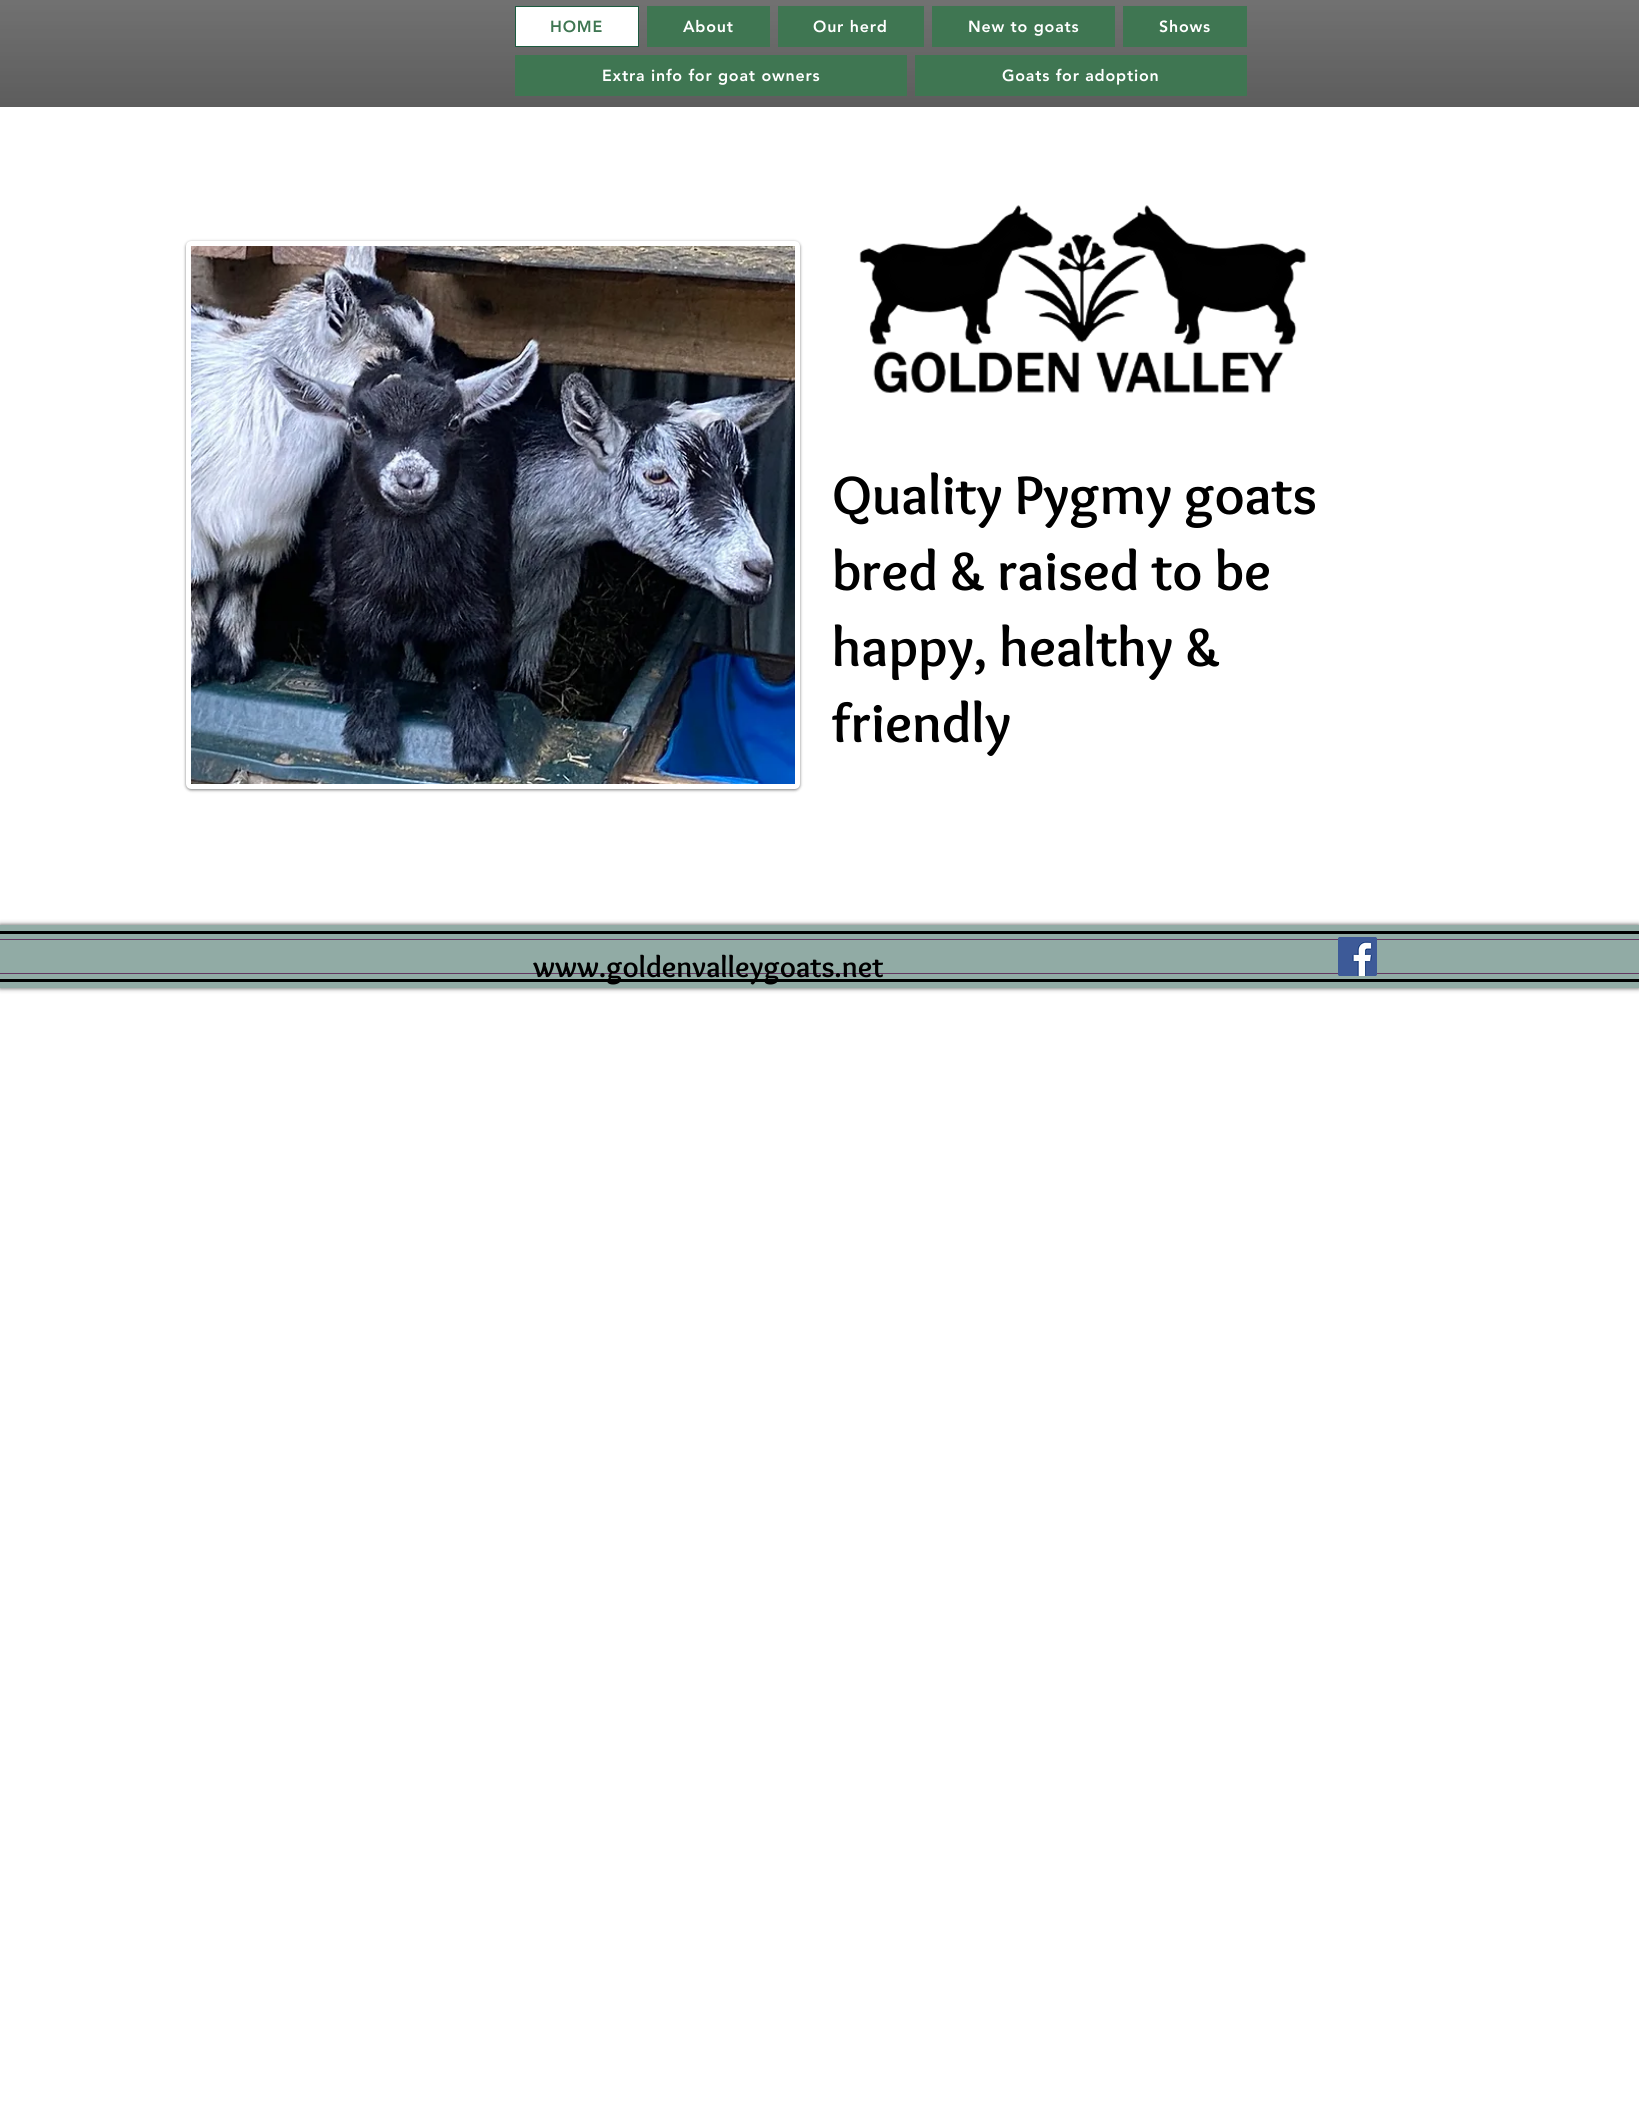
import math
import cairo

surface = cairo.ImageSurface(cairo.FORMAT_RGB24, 1639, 2113)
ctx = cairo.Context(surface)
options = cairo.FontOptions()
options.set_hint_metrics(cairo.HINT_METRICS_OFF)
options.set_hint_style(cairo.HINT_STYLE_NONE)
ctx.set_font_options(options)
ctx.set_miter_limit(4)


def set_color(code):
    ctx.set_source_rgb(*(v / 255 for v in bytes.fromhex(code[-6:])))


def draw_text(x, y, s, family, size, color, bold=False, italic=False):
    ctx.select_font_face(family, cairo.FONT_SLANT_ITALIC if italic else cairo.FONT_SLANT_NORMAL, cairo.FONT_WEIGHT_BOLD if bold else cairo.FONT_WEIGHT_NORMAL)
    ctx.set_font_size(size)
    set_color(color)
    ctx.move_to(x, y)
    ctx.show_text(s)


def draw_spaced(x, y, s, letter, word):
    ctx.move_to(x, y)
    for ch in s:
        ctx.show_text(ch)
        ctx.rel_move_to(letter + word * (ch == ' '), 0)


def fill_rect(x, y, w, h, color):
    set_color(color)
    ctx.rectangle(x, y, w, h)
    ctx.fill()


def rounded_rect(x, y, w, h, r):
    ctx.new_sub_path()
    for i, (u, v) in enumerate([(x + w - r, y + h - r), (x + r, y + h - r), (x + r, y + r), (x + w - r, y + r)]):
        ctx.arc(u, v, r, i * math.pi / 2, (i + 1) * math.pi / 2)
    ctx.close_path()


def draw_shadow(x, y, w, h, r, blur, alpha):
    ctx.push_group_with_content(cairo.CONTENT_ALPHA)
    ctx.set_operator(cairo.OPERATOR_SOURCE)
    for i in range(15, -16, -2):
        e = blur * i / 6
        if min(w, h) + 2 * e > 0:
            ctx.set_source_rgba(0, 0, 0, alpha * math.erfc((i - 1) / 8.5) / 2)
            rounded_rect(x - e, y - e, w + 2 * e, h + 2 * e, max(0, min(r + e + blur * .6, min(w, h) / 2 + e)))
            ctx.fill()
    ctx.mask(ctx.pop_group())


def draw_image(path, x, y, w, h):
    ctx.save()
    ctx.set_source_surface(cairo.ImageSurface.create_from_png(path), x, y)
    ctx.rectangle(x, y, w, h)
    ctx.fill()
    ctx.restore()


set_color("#ffffff")
ctx.paint()
fill_rect(0, 0, 1639, 107, "#404040")
draw_image("assets/img1.png", 0, 0, 1639, 107)
set_color("#ffffff")
ctx.rectangle(515.5, 6.5, 123, 40)
ctx.fill_preserve()
set_color("#1b5b3f")
ctx.set_line_width(1)
ctx.stroke()
ctx.select_font_face("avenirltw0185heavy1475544 Black")
ctx.set_font_size(16)
set_color("#3f7652")
draw_spaced(550, 32, "HOME", 0.8, 0)
fill_rect(647, 6, 123, 41, "#3f7652")
set_color("#ffffff")
draw_spaced(683, 32, "About", 0.8, 0)
fill_rect(778, 6, 146, 41, "#3f7652")
set_color("#ffffff")
draw_spaced(813, 32, "Our herd", 0.8, 0)
fill_rect(932, 6, 183, 41, "#3f7652")
set_color("#ffffff")
draw_spaced(968, 32, "New to goats", 0.8, 0)
fill_rect(1123, 6, 124, 41, "#3f7652")
set_color("#ffffff")
draw_spaced(1159, 32, "Shows", 0.8, 0)
fill_rect(515, 55, 392, 41, "#3f7652")
set_color("#ffffff")
draw_spaced(602, 81, "Extra info for goat owners", 0.8, 0)
fill_rect(915, 55, 332, 41, "#3f7652")
set_color("#ffffff")
draw_spaced(1002, 81, "Goats for adoption", 0.8, 0)
set_color("#000000")
draw_shadow(186, 242, 614, 548, 5, 1.5, 0.5)
rounded_rect(188.5, 243.5, 609, 543, 2.5)
set_color("#ffffff")
ctx.set_line_width(5)
ctx.stroke()
draw_image("assets/img2.png", 191, 246, 604, 538)
draw_image("assets/img3.png", 859, 205, 447, 188)
draw_text(832, 514, "Quality Pygmy goats", "Overlock", 56, "#000000", bold=True)
draw_text(832, 590, "bred & raised to be", "Overlock", 56, "#000000", bold=True)
draw_text(832, 666, "happy, healthy &", "Overlock", 56, "#000000", bold=True)
draw_text(832, 742, "friendly", "Overlock", 56, "#000000", bold=True)
set_color("#000000")
draw_shadow(0, 925, 1639, 63, 0, 2.5, 0.7)
fill_rect(0, 925, 1639, 63, "#91aba5")
fill_rect(0, 931, 1639, 3, "#000000")
fill_rect(0, 979, 1639, 3, "#000000")
fill_rect(0, 939, 1639, 1, "#633761")
fill_rect(0, 973, 1639, 1, "#633761")
draw_text(533, 977, "www.goldenvalleygoats.net", "Overlock", 30, "#000000", bold=True)
draw_image("assets/img4.png", 1338, 937, 39, 39)
surface.write_to_png("output.png")
